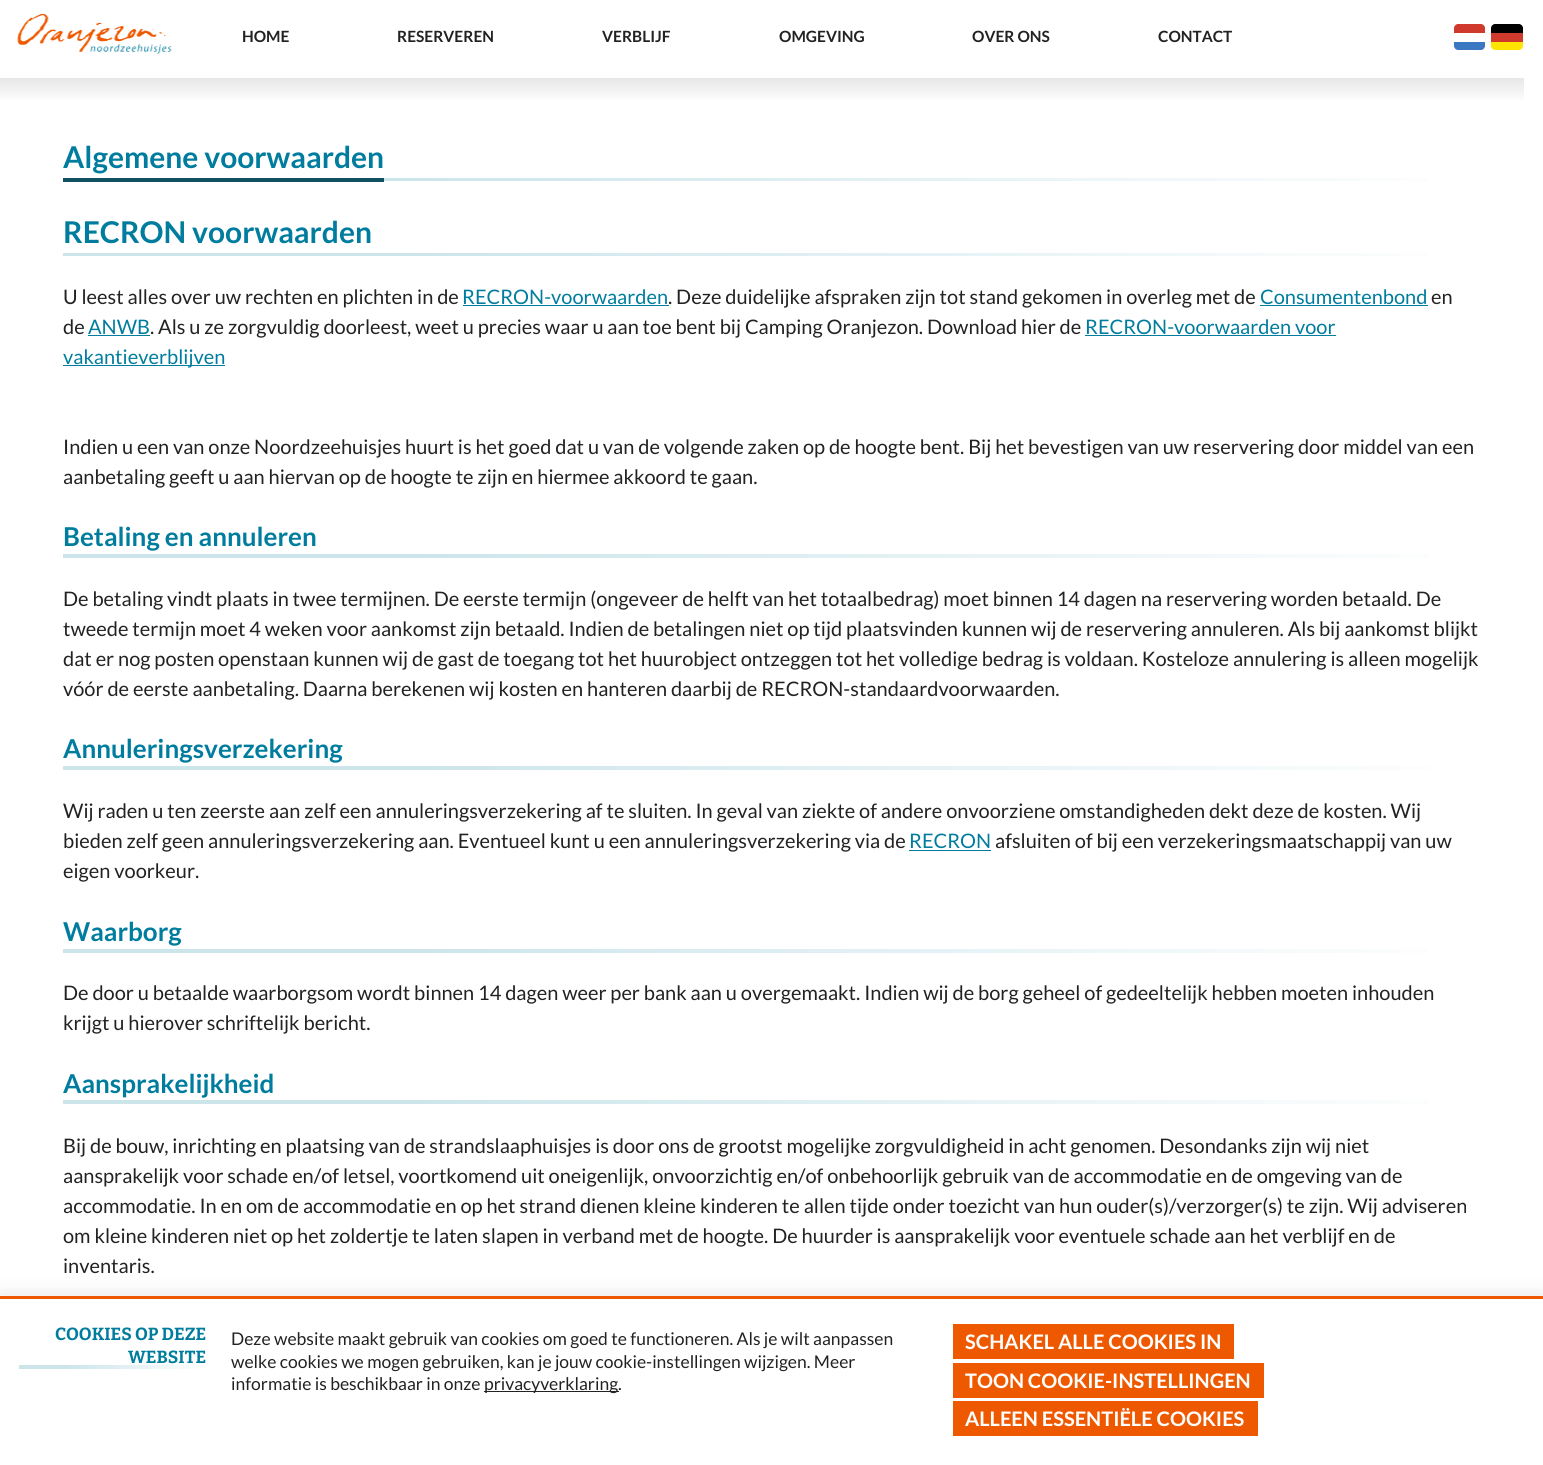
import math
import cairo

surface = cairo.ImageSurface(cairo.FORMAT_RGB24, 1543, 1465)
ctx = cairo.Context(surface)
options = cairo.FontOptions()
options.set_hint_metrics(cairo.HINT_METRICS_OFF)
options.set_hint_style(cairo.HINT_STYLE_NONE)
ctx.set_font_options(options)
ctx.set_miter_limit(4)


def set_color(code):
    ctx.set_source_rgb(*(v / 255 for v in bytes.fromhex(code[-6:])))


def draw_text(x, y, s, family, size, color, bold=False, italic=False):
    ctx.select_font_face(family, cairo.FONT_SLANT_ITALIC if italic else cairo.FONT_SLANT_NORMAL, cairo.FONT_WEIGHT_BOLD if bold else cairo.FONT_WEIGHT_NORMAL)
    ctx.set_font_size(size)
    set_color(color)
    ctx.move_to(x, y)
    ctx.show_text(s)


def fill_rect(x, y, w, h, color):
    set_color(color)
    ctx.rectangle(x, y, w, h)
    ctx.fill()


def rounded_rect(x, y, w, h, r):
    ctx.new_sub_path()
    for i, (u, v) in enumerate([(x + w - r, y + h - r), (x + r, y + h - r), (x + r, y + r), (x + w - r, y + r)]):
        ctx.arc(u, v, r, i * math.pi / 2, (i + 1) * math.pi / 2)
    ctx.close_path()


def draw_shadow(x, y, w, h, r, blur, alpha):
    ctx.push_group_with_content(cairo.CONTENT_ALPHA)
    ctx.set_operator(cairo.OPERATOR_SOURCE)
    for i in range(15, -16, -2):
        e = blur * i / 6
        if min(w, h) + 2 * e > 0:
            ctx.set_source_rgba(0, 0, 0, alpha * math.erfc((i - 1) / 8.5) / 2)
            rounded_rect(x - e, y - e, w + 2 * e, h + 2 * e, max(0, min(r + e + blur * .6, min(w, h) / 2 + e)))
            ctx.fill()
    ctx.mask(ctx.pop_group())


def draw_image(path, x, y, w, h):
    ctx.save()
    ctx.set_source_surface(cairo.ImageSurface.create_from_png(path), x, y)
    ctx.rectangle(x, y, w, h)
    ctx.fill()
    ctx.restore()


set_color("#ffffff")
ctx.paint()
draw_image("assets/img1.png", 17, 14, 155, 40)
draw_text(242, 42, "HOME", "Lato", 15.5, "#222222", bold=True)
draw_text(397, 42, "RESERVEREN", "Lato", 15.5, "#222222", bold=True)
draw_text(602, 42, "VERBLIJF", "Lato", 15.5, "#222222", bold=True)
draw_text(779, 42, "OMGEVING", "Lato", 15.5, "#222222", bold=True)
draw_text(972, 42, "OVER ONS", "Lato", 15.5, "#222222", bold=True)
draw_text(1158, 42, "CONTACT", "Lato", 15.5, "#222222", bold=True)
set_color("#3b78c1")
ctx.new_path()
ctx.move_to(1454, 42)
ctx.line_to(1485, 42)
ctx.line_to(1485, 46)
ctx.curve_to(1485, 48, 1483, 50, 1481, 50)
ctx.line_to(1458, 50)
ctx.curve_to(1456, 50, 1454, 48, 1454, 46)
ctx.close_path()
ctx.fill()
set_color("#d03a2c")
ctx.new_path()
ctx.move_to(1458, 24)
ctx.line_to(1481, 24)
ctx.curve_to(1483, 24, 1485, 26, 1485, 28)
ctx.line_to(1485, 33)
ctx.line_to(1454, 33)
ctx.line_to(1454, 28)
ctx.curve_to(1454, 26, 1456, 24, 1458, 24)
ctx.close_path()
ctx.fill()
set_color("#ffe600")
ctx.new_path()
ctx.move_to(1491, 42)
ctx.line_to(1523, 42)
ctx.line_to(1523, 46)
ctx.curve_to(1523, 48, 1521, 50, 1519, 50)
ctx.line_to(1495, 50)
ctx.curve_to(1493, 50, 1491, 48, 1491, 46)
ctx.close_path()
ctx.fill()
set_color("#000000")
ctx.new_path()
ctx.move_to(1495, 24)
ctx.line_to(1519, 24)
ctx.curve_to(1521, 24, 1523, 26, 1523, 28)
ctx.line_to(1523, 33)
ctx.line_to(1491, 33)
ctx.line_to(1491, 28)
ctx.curve_to(1491, 26, 1493, 24, 1495, 24)
ctx.close_path()
ctx.fill()
fill_rect(1491, 33, 32, 9, "#d03a2c")
gradient = cairo.LinearGradient(762, 77, 762, 103)
gradient.add_color_stop_rgba(0, 0.902, 0.902, 0.902, 1)
gradient.add_color_stop_rgba(1, 1, 1, 1, 1)
ctx.set_source(gradient)
ctx.rectangle(0, 78, 1524, 22)
ctx.fill()
gradient = cairo.LinearGradient(1481, 179, 63, 179)
gradient.add_color_stop_rgba(0, 1, 1, 1, 1)
gradient.add_color_stop_rgba(0.75, 0.8, 0.898, 0.922, 1)
ctx.set_source(gradient)
ctx.rectangle(384, 178, 1045, 3)
ctx.fill()
fill_rect(63, 178, 321, 4, "#0f5163")
draw_text(63, 168, "Algemene voorwaarden", "Lato", 30, "#007d9e", bold=True)
gradient = cairo.LinearGradient(1481, 254, 63, 254)
gradient.add_color_stop_rgba(0, 1, 1, 1, 1)
gradient.add_color_stop_rgba(0.75, 0.8, 0.898, 0.922, 1)
ctx.set_source(gradient)
ctx.rectangle(63, 253, 1366, 3)
ctx.fill()
draw_text(63, 243, "RECRON voorwaarden", "Lato", 30, "#007d9e", bold=True)
draw_text(63, 304, "U leest alles over uw rechten en plichten in de", "Lato", 20, "#222222")
draw_text(462, 304, "RECRON-voorwaarden", "Lato", 20, "#007d9e")
fill_rect(463, 305, 206, 1, "#007d9e")
draw_text(668, 304, ". Deze duidelijke afspraken zijn tot stand gekomen in overleg met de", "Lato", 20, "#222222")
draw_text(1260, 304, "Consumentenbond", "Lato", 20, "#007d9e")
fill_rect(1260, 305, 168, 1, "#007d9e")
draw_text(1431, 304, "en", "Lato", 20, "#222222")
draw_text(63, 334, "de", "Lato", 20, "#222222")
draw_text(88, 334, "ANWB", "Lato", 20, "#007d9e")
fill_rect(88, 335, 62, 1, "#007d9e")
draw_text(150, 334, ". Als u ze zorgvuldig doorleest, weet u precies waar u aan toe bent bij Camping Oranjezon. Download hier de", "Lato", 20, "#222222")
draw_text(1085, 334, "RECRON-voorwaarden voor", "Lato", 20, "#007d9e")
fill_rect(1085, 335, 251, 1, "#007d9e")
fill_rect(63, 365, 162, 1, "#007d9e")
draw_text(63, 364, "vakantieverblijven", "Lato", 20, "#007d9e")
draw_text(63, 454, "Indien u een van onze Noordzeehuisjes huurt is het goed dat u van de volgende zaken op de hoogte bent. Bij het bevestigen van uw reservering door middel van een", "Lato", 20, "#222222")
draw_text(63, 484, "aanbetaling geeft u aan hiervan op de hoogte te zijn en hiermee akkoord te gaan.", "Lato", 20, "#222222")
gradient = cairo.LinearGradient(1481, 556, 63, 556)
gradient.add_color_stop_rgba(0, 1, 1, 1, 1)
gradient.add_color_stop_rgba(0.75, 0.8, 0.898, 0.922, 1)
ctx.set_source(gradient)
ctx.rectangle(63, 554, 1366, 4)
ctx.fill()
draw_text(63, 546, "Betaling en annuleren", "Lato", 26, "#007d9e", bold=True)
draw_text(63, 606, "De betaling vindt plaats in twee termijnen. De eerste termijn (ongeveer de helft van het totaalbedrag) moet binnen 14 dagen na reservering worden betaald. De", "Lato", 20, "#222222")
draw_text(63, 636, "tweede termijn moet 4 weken voor aankomst zijn betaald. Indien de betalingen niet op tijd plaatsvinden kunnen wij de reservering annuleren. Als bij aankomst blijkt", "Lato", 20, "#222222")
draw_text(63, 666, "dat er nog posten openstaan kunnen wij de gast de toegang tot het huurobject ontzeggen tot het volledige bedrag is voldaan. Kosteloze annulering is alleen mogelijk", "Lato", 20, "#222222")
draw_text(63, 696, "vóór de eerste aanbetaling. Daarna berekenen wij kosten en hanteren daarbij de RECRON-standaardvoorwaarden.", "Lato", 20, "#222222")
gradient = cairo.LinearGradient(1481, 768, 63, 768)
gradient.add_color_stop_rgba(0, 1, 1, 1, 1)
gradient.add_color_stop_rgba(0.75, 0.8, 0.898, 0.922, 1)
ctx.set_source(gradient)
ctx.rectangle(63, 766, 1366, 4)
ctx.fill()
draw_text(63, 758, "Annuleringsverzekering", "Lato", 26, "#007d9e", bold=True)
draw_text(63, 818, "Wij raden u ten zeerste aan zelf een annuleringsverzekering af te sluiten. In geval van ziekte of andere onvoorziene omstandigheden dekt deze de kosten. Wij", "Lato", 20, "#222222")
draw_text(63, 848, "bieden zelf geen annuleringsverzekering aan. Eventueel kunt u een annuleringsverzekering via de", "Lato", 20, "#222222")
draw_text(909, 848, "RECRON", "Lato", 20, "#007d9e")
fill_rect(909, 850, 82, 1, "#007d9e")
draw_text(995, 848, "afsluiten of bij een verzekeringsmaatschappij van uw", "Lato", 20, "#222222")
draw_text(63, 878, "eigen voorkeur.", "Lato", 20, "#222222")
gradient = cairo.LinearGradient(1481, 951, 63, 951)
gradient.add_color_stop_rgba(0, 1, 1, 1, 1)
gradient.add_color_stop_rgba(0.75, 0.8, 0.898, 0.922, 1)
ctx.set_source(gradient)
ctx.rectangle(63, 949, 1366, 4)
ctx.fill()
draw_text(63, 941, "Waarborg", "Lato", 26, "#007d9e", bold=True)
draw_text(63, 1000, "De door u betaalde waarborgsom wordt binnen 14 dagen weer per bank aan u overgemaakt. Indien wij de borg geheel of gedeeltelijk hebben moeten inhouden", "Lato", 20, "#222222")
draw_text(63, 1030, "krijgt u hierover schriftelijk bericht.", "Lato", 20, "#222222")
gradient = cairo.LinearGradient(1481, 1102, 63, 1102)
gradient.add_color_stop_rgba(0, 1, 1, 1, 1)
gradient.add_color_stop_rgba(0.75, 0.8, 0.898, 0.922, 1)
ctx.set_source(gradient)
ctx.rectangle(63, 1100, 1366, 4)
ctx.fill()
draw_text(63, 1093, "Aansprakelijkheid", "Lato", 26, "#007d9e", bold=True)
draw_text(63, 1153, "Bij de bouw, inrichting en plaatsing van de strandslaaphuisjes is door ons de grootst mogelijke zorgvuldigheid in acht genomen. Desondanks zijn wij niet", "Lato", 20, "#222222")
draw_text(63, 1183, "aansprakelijk voor schade en/of letsel, voortkomend uit oneigenlijk, onvoorzichtig en/of onbehoorlijk gebruik van de accommodatie en de omgeving van de", "Lato", 20, "#222222")
draw_text(63, 1213, "accommodatie. In en om de accommodatie en op het strand dienen kleine kinderen te allen tijde onder toezicht van hun ouder(s)/verzorger(s) te zijn. Wij adviseren", "Lato", 20, "#222222")
draw_text(63, 1243, "om kleine kinderen niet op het zoldertje te laten slapen in verband met de hoogte. De huurder is aansprakelijk voor eventuele schade aan het verblijf en de", "Lato", 20, "#222222")
draw_text(63, 1273, "inventaris.", "Lato", 20, "#222222")
set_color("#000000")
draw_shadow(0, 1303, 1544, 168, 0, 12.5, 0.2)
fill_rect(0, 1299, 1543, 166, "#ffffff")
fill_rect(0, 1296, 1543, 3, "#ee5900")
gradient = cairo.LinearGradient(206, 1367, 19, 1367)
gradient.add_color_stop_rgba(0, 1, 1, 1, 1)
gradient.add_color_stop_rgba(0.75, 0.8, 0.898, 0.922, 1)
ctx.set_source(gradient)
ctx.rectangle(19, 1365, 187, 4)
ctx.fill()
draw_text(55, 1340, "COOKIES OP DEZE", "Bitter", 17.5, "#007d9e", bold=True)
draw_text(128, 1363, "WEBSITE", "Bitter", 17.5, "#007d9e", bold=True)
draw_text(231, 1345, "Deze website maakt gebruik van cookies om goed te functioneren. Als je wilt aanpassen", "Lato", 17.5, "#222222")
draw_text(231, 1368, "welke cookies we mogen gebruiken, kan je jouw cookie-instellingen wijzigen. Meer", "Lato", 17.5, "#222222")
draw_text(231, 1390, "informatie is beschikbaar in onze", "Lato", 17.5, "#222222")
fill_rect(484, 1391, 135, 1, "#222222")
draw_text(484, 1390, "privacyverklaring.", "Lato", 17.5, "#222222")
fill_rect(953, 1324, 281, 35, "#ee5900")
draw_text(965, 1349, "SCHAKEL ALLE COOKIES IN", "Lato", 20, "#ffffff", bold=True)
fill_rect(953, 1363, 311, 35, "#ee5900")
draw_text(965, 1388, "TOON COOKIE-INSTELLINGEN", "Lato", 20, "#ffffff", bold=True)
fill_rect(953, 1401, 305, 35, "#ee5900")
draw_text(965, 1426, "ALLEEN ESSENTIËLE COOKIES", "Lato", 20, "#ffffff", bold=True)
surface.write_to_png("output.png")
